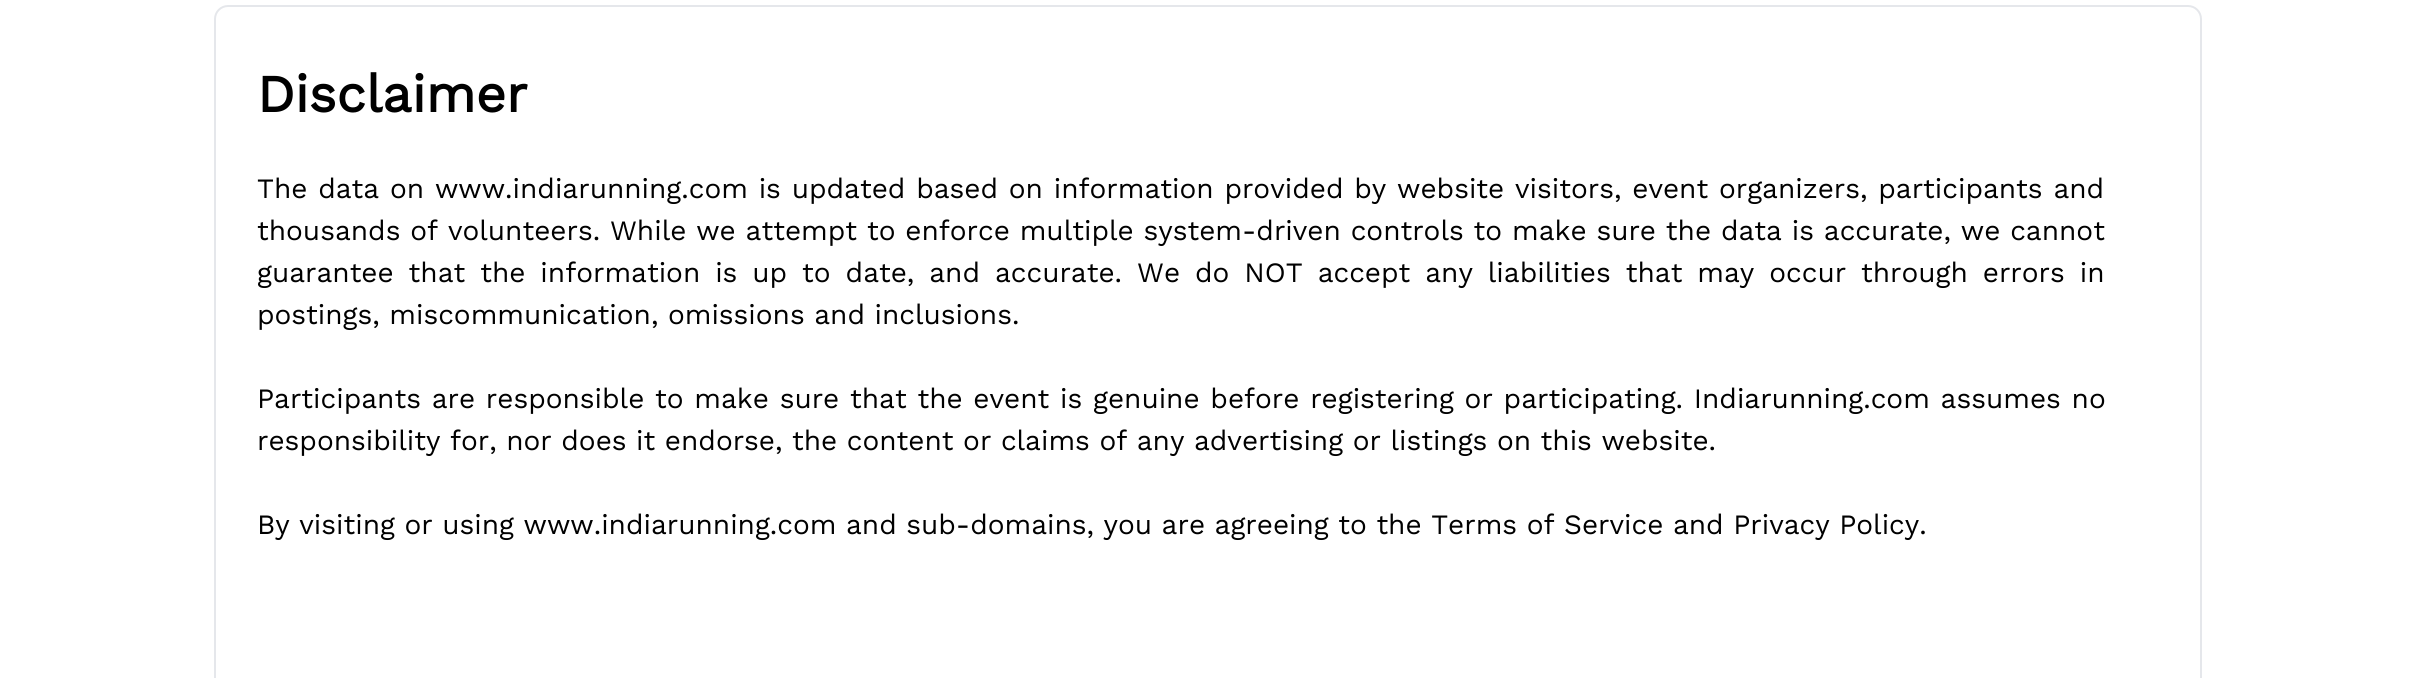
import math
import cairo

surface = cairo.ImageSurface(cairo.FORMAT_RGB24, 2414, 678)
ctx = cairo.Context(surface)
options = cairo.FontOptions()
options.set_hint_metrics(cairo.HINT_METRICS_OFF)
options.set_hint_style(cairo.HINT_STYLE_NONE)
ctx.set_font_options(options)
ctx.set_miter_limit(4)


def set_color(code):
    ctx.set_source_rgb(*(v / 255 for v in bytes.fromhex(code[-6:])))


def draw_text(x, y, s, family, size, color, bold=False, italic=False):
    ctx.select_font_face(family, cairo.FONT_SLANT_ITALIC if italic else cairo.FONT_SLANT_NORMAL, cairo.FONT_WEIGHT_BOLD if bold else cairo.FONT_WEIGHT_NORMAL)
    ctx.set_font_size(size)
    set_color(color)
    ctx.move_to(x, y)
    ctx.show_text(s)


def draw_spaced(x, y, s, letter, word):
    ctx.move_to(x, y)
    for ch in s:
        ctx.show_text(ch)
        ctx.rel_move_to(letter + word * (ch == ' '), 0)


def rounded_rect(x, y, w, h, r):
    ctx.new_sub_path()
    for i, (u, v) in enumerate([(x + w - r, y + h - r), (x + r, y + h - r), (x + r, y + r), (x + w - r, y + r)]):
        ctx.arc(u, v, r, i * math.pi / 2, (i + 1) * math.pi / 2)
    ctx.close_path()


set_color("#ffffff")
ctx.paint()
rounded_rect(215, 6, 1986, 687, 13)
set_color("#e5e7eb")
ctx.stroke()
draw_text(257, 112, "Disclaimer", "Work Sans", 52.5, "#000000", bold=True)
ctx.select_font_face("Work Sans")
ctx.set_font_size(28)
draw_spaced(257, 198, "The data on www.indiarunning.com is updated based on information provided by website visitors, event organizers, participants and", 0, 1.25)
draw_spaced(257, 240, "thousands of volunteers. While we attempt to enforce multiple system-driven controls to make sure the data is accurate, we cannot", 0, 0.3)
draw_spaced(257, 282, "guarantee that the information is up to date, and accurate. We do NOT accept any liabilities that may occur through errors in", 0, 5.4)
draw_text(257, 324, "postings, miscommunication, omissions and inclusions.", "Work Sans", 28, "#000000")
draw_spaced(257, 408, "Participants are responsible to make sure that the event is genuine before registering or participating. Indiarunning.com assumes no", 0, 1.2)
draw_text(257, 450, "responsibility for, nor does it endorse, the content or claims of any advertising or listings on this website.", "Work Sans", 28, "#000000")
draw_text(257, 534, "By visiting or using www.indiarunning.com and sub-domains, you are agreeing to the Terms of Service and Privacy Policy.", "Work Sans", 28, "#000000")
surface.write_to_png("output.png")
